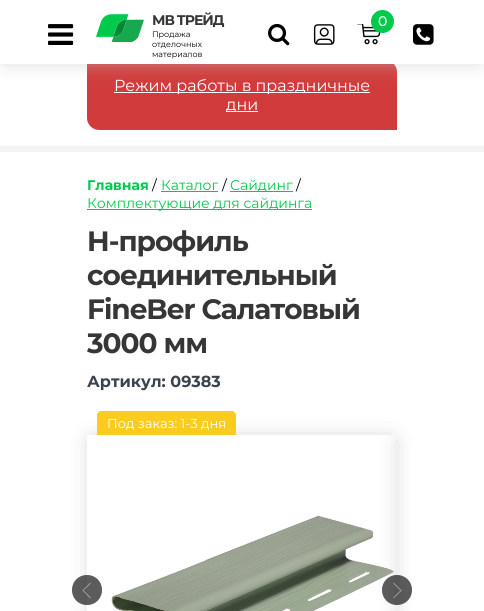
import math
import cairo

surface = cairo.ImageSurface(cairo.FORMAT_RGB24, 484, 611)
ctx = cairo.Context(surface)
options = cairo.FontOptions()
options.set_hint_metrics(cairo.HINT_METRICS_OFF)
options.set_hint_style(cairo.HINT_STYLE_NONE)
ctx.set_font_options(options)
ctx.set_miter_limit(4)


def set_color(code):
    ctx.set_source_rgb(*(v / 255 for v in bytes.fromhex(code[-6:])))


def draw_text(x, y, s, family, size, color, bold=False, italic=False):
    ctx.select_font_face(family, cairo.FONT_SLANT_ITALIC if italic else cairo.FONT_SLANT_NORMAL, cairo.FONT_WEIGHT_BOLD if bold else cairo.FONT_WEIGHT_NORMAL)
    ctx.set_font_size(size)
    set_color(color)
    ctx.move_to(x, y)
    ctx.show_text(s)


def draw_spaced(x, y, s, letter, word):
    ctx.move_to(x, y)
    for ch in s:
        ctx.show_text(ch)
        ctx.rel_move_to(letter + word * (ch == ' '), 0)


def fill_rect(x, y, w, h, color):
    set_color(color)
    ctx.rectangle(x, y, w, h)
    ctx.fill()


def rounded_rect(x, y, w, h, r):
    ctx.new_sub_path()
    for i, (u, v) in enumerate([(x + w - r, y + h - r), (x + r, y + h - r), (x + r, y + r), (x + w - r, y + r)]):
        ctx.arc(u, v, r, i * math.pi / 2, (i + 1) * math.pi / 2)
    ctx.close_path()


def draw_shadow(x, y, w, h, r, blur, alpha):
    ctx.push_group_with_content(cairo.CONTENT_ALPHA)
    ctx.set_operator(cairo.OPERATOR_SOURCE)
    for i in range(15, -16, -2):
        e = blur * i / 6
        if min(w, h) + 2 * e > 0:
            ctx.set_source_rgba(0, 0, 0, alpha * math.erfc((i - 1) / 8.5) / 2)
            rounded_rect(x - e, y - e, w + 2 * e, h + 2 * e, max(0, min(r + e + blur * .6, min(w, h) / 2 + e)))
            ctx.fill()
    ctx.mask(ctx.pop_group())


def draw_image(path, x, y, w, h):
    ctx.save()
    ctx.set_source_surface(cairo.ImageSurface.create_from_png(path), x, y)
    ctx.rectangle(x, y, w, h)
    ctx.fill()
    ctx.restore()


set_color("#ffffff")
ctx.paint()
set_color("#d13b3b")
ctx.new_path()
ctx.move_to(87, 60)
ctx.line_to(385, 60)
ctx.curve_to(391.5, 60, 397, 65.5, 397, 72)
ctx.line_to(397, 130)
ctx.line_to(99, 130)
ctx.curve_to(92.5, 130, 87, 124.5, 87, 118)
ctx.close_path()
ctx.fill()
set_color("#c3c3c3")
draw_shadow(6, 6, 472, 52, 0, 11, 1)
fill_rect(0, 0, 484, 64, "#ffffff")
draw_image("assets/img1.png", 96, 14, 48, 28)
ctx.select_font_face("Montserrat", cairo.FONT_SLANT_NORMAL, cairo.FONT_WEIGHT_BOLD)
ctx.set_font_size(14)
set_color("#363636")
draw_spaced(152, 25, "МВ ТРЕЙД", -1, 0)
draw_text(152, 37, "Продажа", "Montserrat", 8, "#000000")
draw_text(152, 47, "отделочных", "Montserrat", 8, "#000000")
draw_text(152, 57, "материалов", "Montserrat", 8, "#000000")
draw_image("assets/img2.png", 357, 24, 24, 21)
set_color("#00ca4c")
ctx.arc(382.5, 21.5, 10.5, 0, 2 * math.pi)
ctx.fill_preserve()
ctx.stroke()
draw_text(378, 26, "0", "Montserrat Medium", 14, "#ffffff")
draw_image("assets/img3.png", 48, 24, 26, 21)
draw_image("assets/img4.png", 268, 23, 22, 23)
draw_image("assets/img5.png", 313, 24, 22, 21)
draw_image("assets/img6.png", 413, 24, 21, 21)
fill_rect(114, 92, 256, 1, "#ffffff")
draw_text(114, 91, "Режим работы в праздничные", "Montserrat", 16, "#ffffff")
fill_rect(226, 111, 32, 1, "#ffffff")
draw_text(226, 110, "дни", "Montserrat", 16, "#ffffff")
fill_rect(0, 146, 484, 6, "#f3f3f3")
draw_text(87, 190, "Главная", "Montserrat", 14, "#00ca4c", bold=True)
draw_text(152, 190, "/", "Montserrat", 14, "#000000")
draw_text(161, 190, "Каталог", "Montserrat", 14, "#00ca4c")
fill_rect(161, 191, 57, 1, "#00ca4c")
draw_text(222, 190, "/", "Montserrat", 14, "#000000")
fill_rect(230, 191, 63, 1, "#00ca4c")
draw_text(230, 190, "Сайдинг", "Montserrat", 14, "#00ca4c")
draw_text(296, 190, "/", "Montserrat", 14, "#000000")
fill_rect(87, 209, 225, 1, "#00ca4c")
draw_text(87, 208, "Комплектующие для сайдинга", "Montserrat", 14, "#00ca4c")
ctx.select_font_face("Montserrat", cairo.FONT_SLANT_NORMAL, cairo.FONT_WEIGHT_BOLD)
ctx.set_font_size(28)
set_color("#363636")
draw_spaced(87, 251, "H-профиль", -1, 0)
draw_spaced(87, 285, "соединительный", -1, 0)
draw_spaced(87, 319, "FineBer Салатовый", -1, 0)
draw_spaced(87, 353, "3000 мм", -1, 0)
draw_text(87, 387, "Артикул: 09383", "Montserrat", 16, "#3d434c", bold=True)
ctx.save()
ctx.set_fill_rule(cairo.FILL_RULE_EVEN_ODD)
ctx.new_path()
ctx.move_to(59, 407)
ctx.line_to(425, 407)
ctx.line_to(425, 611)
ctx.line_to(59, 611)
ctx.close_path()
ctx.move_to(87, 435)
ctx.line_to(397, 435)
ctx.line_to(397, 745)
ctx.line_to(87, 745)
ctx.close_path()
ctx.clip()
set_color("#c3c3c3")
draw_shadow(93, 441, 298, 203, 0, 11, 1)
ctx.restore()
ctx.set_source_rgba(0, 0, 0, 0.4)
ctx.new_path()
ctx.move_to(87, 575)
ctx.curve_to(78.5, 575, 72, 581.5, 72, 590)
ctx.curve_to(72, 598.5, 78.5, 605, 87, 605)
ctx.curve_to(95.5, 605, 102, 598.5, 102, 590)
ctx.curve_to(102, 581.5, 95.5, 575, 87, 575)
ctx.close_path()
ctx.fill()
ctx.new_path()
ctx.move_to(87, 575)
ctx.curve_to(95.5, 575, 102, 581.5, 102, 590)
ctx.curve_to(102, 598.5, 95.5, 605, 87, 605)
ctx.curve_to(78.5, 605, 72, 598.5, 72, 590)
ctx.curve_to(72, 581.5, 78.5, 575, 87, 575)
ctx.close_path()
ctx.fill()
ctx.new_path()
ctx.move_to(90.5, 583)
ctx.line_to(83, 590.5)
ctx.line_to(90.5, 598)
ctx.set_source_rgba(1, 1, 1, 0.4)
ctx.set_line_width(1)
ctx.stroke()
draw_image("assets/img7.png", 111, 515, 283, 96)
ctx.save()
ctx.rectangle(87, 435, 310, 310)
ctx.clip()
set_color("#c3c3c3")
draw_shadow(403, 441, 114, 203, 0, 11, 1)
ctx.restore()
ctx.set_source_rgba(0, 0, 0, 0.4)
ctx.arc(397, 590, 15, 0, 2 * math.pi)
ctx.fill()
ctx.new_path()
ctx.move_to(397, 575)
ctx.curve_to(388.5, 575, 382, 581.5, 382, 590)
ctx.curve_to(382, 598.5, 388.5, 605, 397, 605)
ctx.curve_to(405.5, 605, 412, 598.5, 412, 590)
ctx.curve_to(412, 581.5, 405.5, 575, 397, 575)
ctx.close_path()
ctx.fill()
ctx.new_path()
ctx.move_to(393.5, 583)
ctx.line_to(401, 590.5)
ctx.line_to(393.5, 598)
set_color("#9a9a9a")
ctx.stroke()
set_color("#facc1f")
ctx.new_path()
ctx.move_to(101, 411)
ctx.line_to(232, 411)
ctx.curve_to(234, 411, 236, 413, 236, 415)
ctx.line_to(236, 435)
ctx.line_to(97, 435)
ctx.line_to(97, 415)
ctx.curve_to(97, 413, 99, 411, 101, 411)
ctx.close_path()
ctx.fill()
draw_text(107, 428, "Под заказ: 1-3 дня", "Montserrat", 13, "#ffffff")
surface.write_to_png("output.png")
